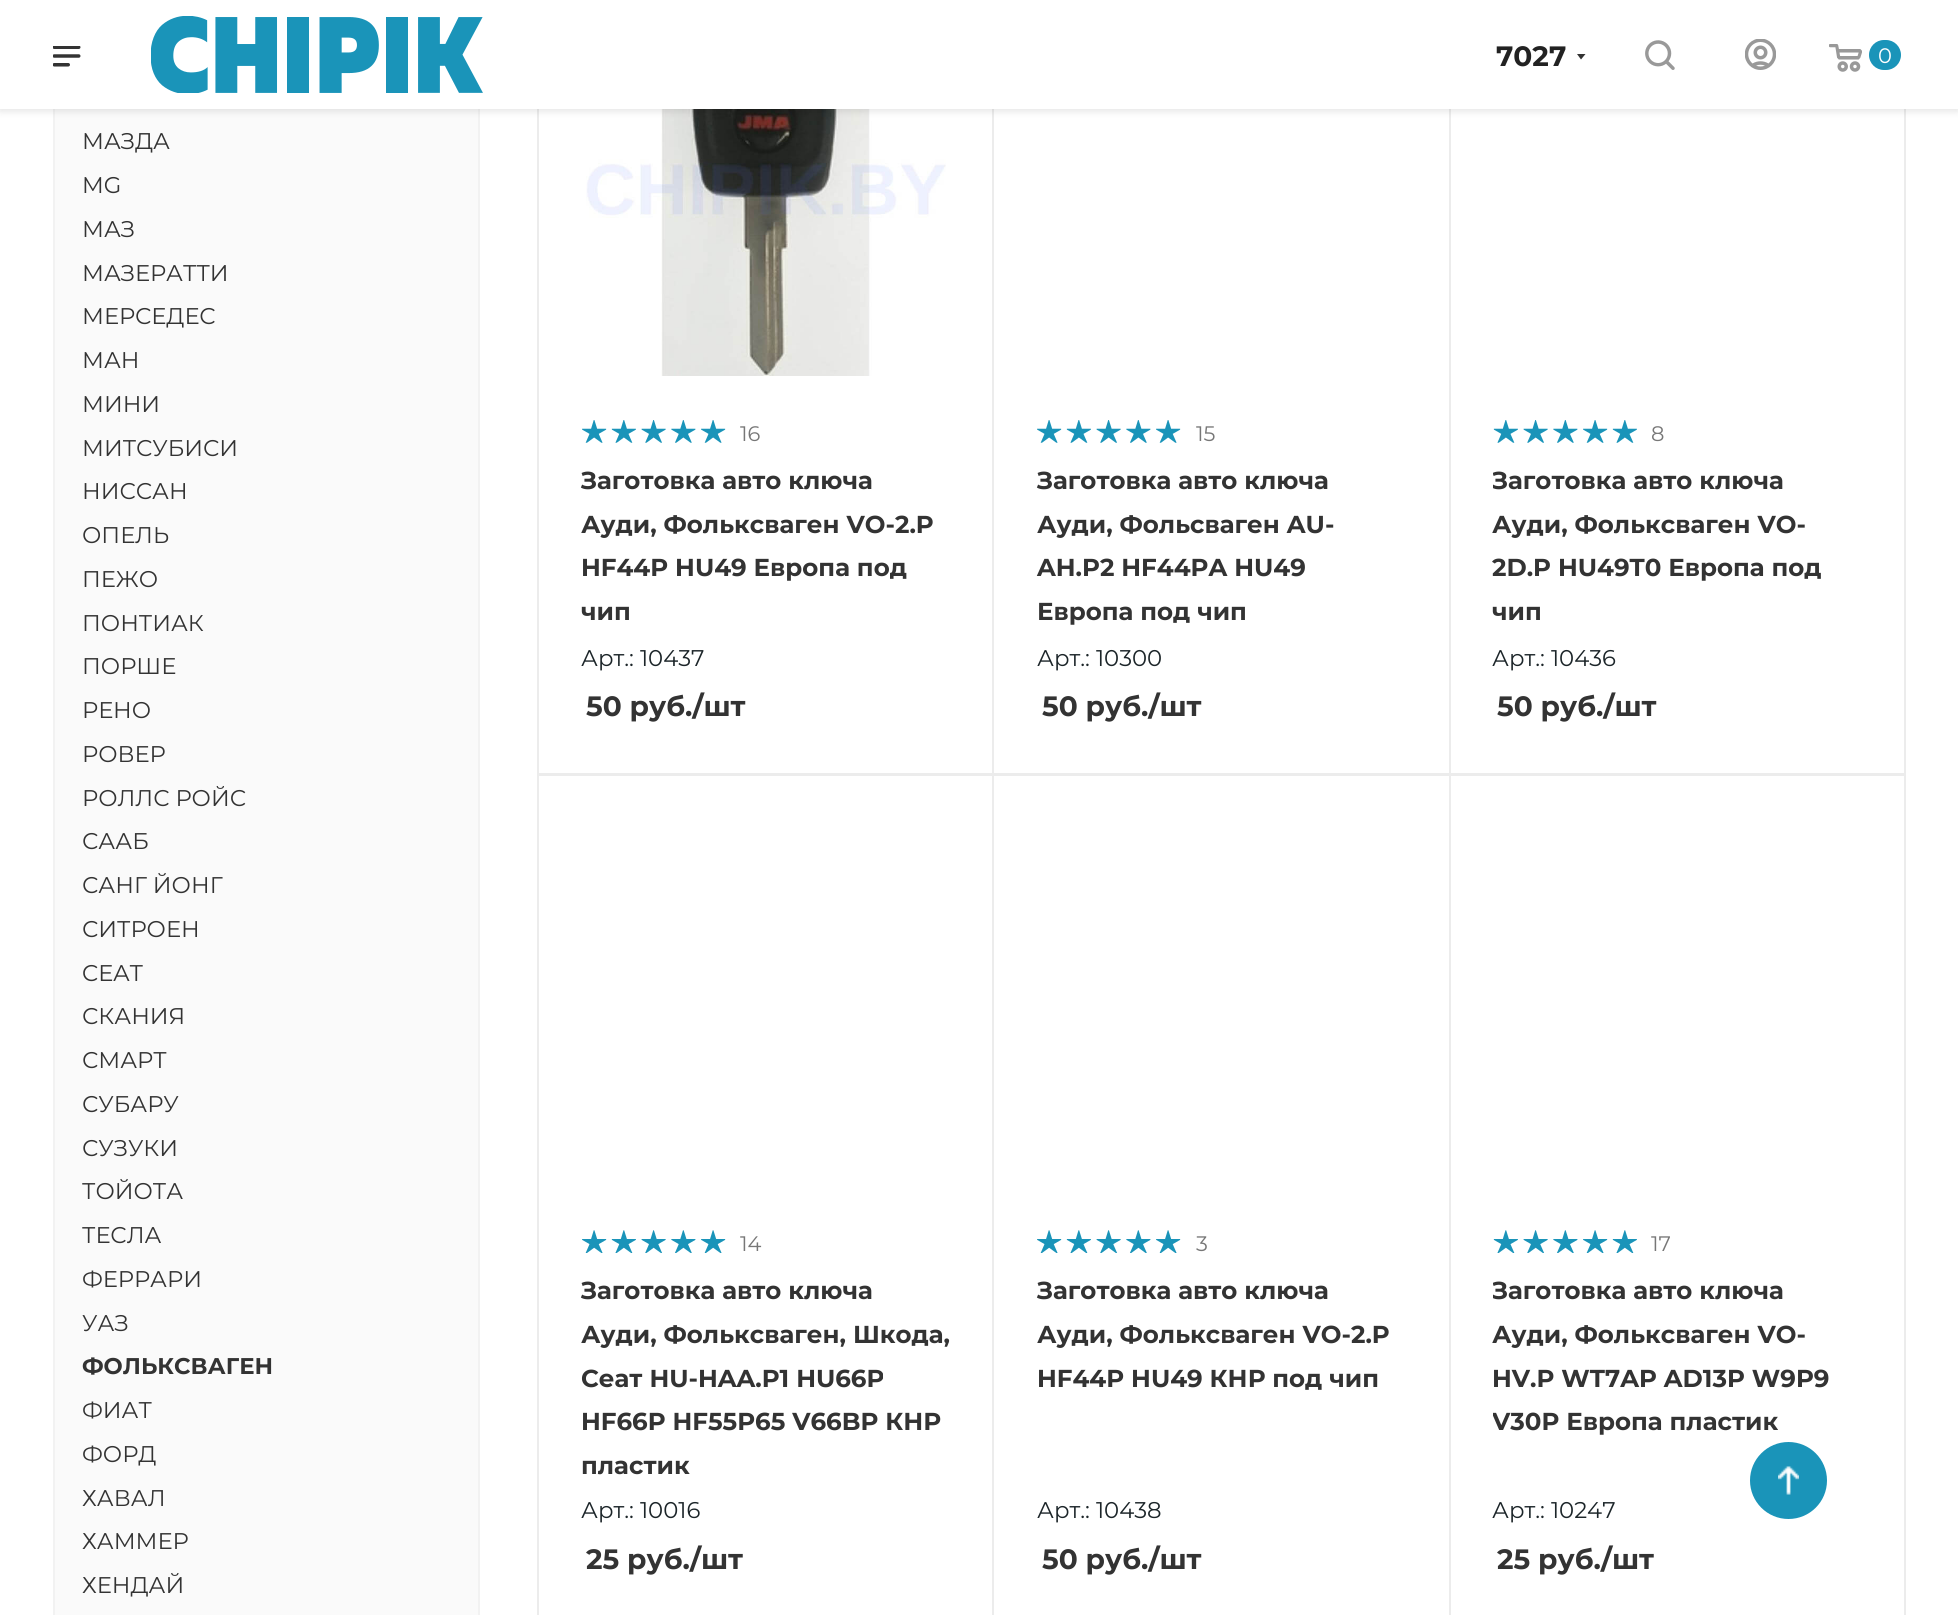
import math
import cairo

surface = cairo.ImageSurface(cairo.FORMAT_RGB24, 1958, 1615)
ctx = cairo.Context(surface)
options = cairo.FontOptions()
options.set_hint_metrics(cairo.HINT_METRICS_OFF)
options.set_hint_style(cairo.HINT_STYLE_NONE)
ctx.set_font_options(options)
ctx.set_miter_limit(4)


def set_color(code):
    ctx.set_source_rgb(*(v / 255 for v in bytes.fromhex(code[-6:])))


def draw_text(x, y, s, family, size, color, bold=False, italic=False):
    ctx.select_font_face(family, cairo.FONT_SLANT_ITALIC if italic else cairo.FONT_SLANT_NORMAL, cairo.FONT_WEIGHT_BOLD if bold else cairo.FONT_WEIGHT_NORMAL)
    ctx.set_font_size(size)
    set_color(color)
    ctx.move_to(x, y)
    ctx.show_text(s)


def fill_rect(x, y, w, h, color):
    set_color(color)
    ctx.rectangle(x, y, w, h)
    ctx.fill()


def rounded_rect(x, y, w, h, r):
    ctx.new_sub_path()
    for i, (u, v) in enumerate([(x + w - r, y + h - r), (x + r, y + h - r), (x + r, y + r), (x + w - r, y + r)]):
        ctx.arc(u, v, r, i * math.pi / 2, (i + 1) * math.pi / 2)
    ctx.close_path()


def draw_shadow(x, y, w, h, r, blur, alpha):
    ctx.push_group_with_content(cairo.CONTENT_ALPHA)
    ctx.set_operator(cairo.OPERATOR_SOURCE)
    for i in range(15, -16, -2):
        e = blur * i / 6
        if min(w, h) + 2 * e > 0:
            ctx.set_source_rgba(0, 0, 0, alpha * math.erfc((i - 1) / 8.5) / 2)
            rounded_rect(x - e, y - e, w + 2 * e, h + 2 * e, max(0, min(r + e + blur * .6, min(w, h) / 2 + e)))
            ctx.fill()
    ctx.mask(ctx.pop_group())


def draw_image(path, x, y, w, h):
    ctx.save()
    ctx.set_source_surface(cairo.ImageSurface.create_from_png(path), x, y)
    ctx.rectangle(x, y, w, h)
    ctx.fill()
    ctx.restore()


set_color("#ffffff")
ctx.paint()
fill_rect(55, 109, 423, 1506, "#fafafa")
fill_rect(478, 109, 2, 1506, "#f2f2f2")
fill_rect(53, 109, 2, 1506, "#f2f2f2")
ctx.rectangle(538, -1, 455, 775)
set_color("#ececec")
ctx.stroke()
draw_image("assets/img6.png", 586, 109, 360, 267)
ctx.rectangle(993, -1, 457, 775)
ctx.stroke()
ctx.rectangle(1450, -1, 455, 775)
ctx.stroke()
set_color("#000000")
draw_shadow(0, 2, 1958, 108, 0, 4.5, 0.14)
fill_rect(0, 0, 1958, 109, "#ffffff")
draw_image("assets/img1.png", 53, 46, 28, 21)
draw_image("assets/img2.png", 151, 16, 332, 77)
draw_text(1496, 66, "7027", "Montserrat", 28, "#222222", bold=True)
set_color("#333333")
ctx.set_fill_rule(cairo.FILL_RULE_EVEN_ODD)
ctx.new_path()
ctx.move_to(1577, 54)
ctx.line_to(1585.5, 54)
ctx.line_to(1581, 59.5)
ctx.close_path()
ctx.fill()
draw_image("assets/img3.png", 1645, 40, 30, 30)
draw_image("assets/img4.png", 1745, 39, 31, 31)
draw_image("assets/img5.png", 1829, 44, 33, 28)
set_color("#1a94b9")
rounded_rect(1869, 40, 32, 30, 15)
ctx.fill()
draw_text(1878, 63, "0", "Montserrat", 21, "#ffffff")
draw_text(82, 149, "МАЗДА", "Montserrat", 22.75, "#333333")
draw_text(82, 193, "MG", "Montserrat", 22.75, "#333333")
draw_text(82, 237, "МАЗ", "Montserrat", 22.75, "#333333")
draw_text(82, 281, "МАЗЕРАТТИ", "Montserrat", 22.75, "#333333")
draw_text(82, 324, "МЕРСЕДЕС", "Montserrat", 22.75, "#333333")
draw_text(82, 368, "МАН", "Montserrat", 22.75, "#333333")
draw_text(82, 412, "МИНИ", "Montserrat", 22.75, "#333333")
draw_text(82, 456, "МИТСУБИСИ", "Montserrat", 22.75, "#333333")
draw_text(82, 499, "НИССАН", "Montserrat", 22.75, "#333333")
draw_text(82, 543, "ОПЕЛЬ", "Montserrat", 22.75, "#333333")
draw_text(82, 587, "ПЕЖО", "Montserrat", 22.75, "#333333")
draw_text(82, 631, "ПОНТИАК", "Montserrat", 22.75, "#333333")
draw_text(82, 674, "ПОРШЕ", "Montserrat", 22.75, "#333333")
draw_text(82, 718, "РЕНО", "Montserrat", 22.75, "#333333")
draw_text(82, 762, "РОВЕР", "Montserrat", 22.75, "#333333")
draw_text(82, 806, "РОЛЛС РОЙС", "Montserrat", 22.75, "#333333")
draw_text(82, 849, "СААБ", "Montserrat", 22.75, "#333333")
draw_text(82, 893, "САНГ ЙОНГ", "Montserrat", 22.75, "#333333")
draw_text(82, 937, "СИТРОЕН", "Montserrat", 22.75, "#333333")
draw_text(82, 981, "CEAT", "Montserrat", 22.75, "#333333")
draw_text(82, 1024, "СКАНИЯ", "Montserrat", 22.75, "#333333")
draw_text(82, 1068, "СМАРТ", "Montserrat", 22.75, "#333333")
draw_text(82, 1112, "СУБАРУ", "Montserrat", 22.75, "#333333")
draw_text(82, 1156, "СУЗУКИ", "Montserrat", 22.75, "#333333")
draw_text(82, 1199, "ТОЙОТА", "Montserrat", 22.75, "#333333")
draw_text(82, 1243, "ТЕСЛА", "Montserrat", 22.75, "#333333")
draw_text(82, 1287, "ФЕРРАРИ", "Montserrat", 22.75, "#333333")
draw_text(82, 1331, "УАЗ", "Montserrat", 22.75, "#333333")
draw_text(82, 1374, "ФОЛЬКСВАГЕН", "Montserrat", 22.75, "#333333", bold=True)
draw_text(82, 1418, "ФИАТ", "Montserrat", 22.75, "#333333")
draw_text(82, 1462, "ФОРД", "Montserrat", 22.75, "#333333")
draw_text(82, 1506, "ХАВАЛ", "Montserrat", 22.75, "#333333")
draw_text(82, 1549, "ХАММЕР", "Montserrat", 22.75, "#333333")
draw_text(82, 1593, "ХЕНДАЙ", "Montserrat", 22.75, "#333333")
draw_image("assets/img7.png", 582, 420, 25, 23)
draw_image("assets/img8.png", 611, 420, 25, 23)
draw_image("assets/img9.png", 641, 420, 25, 23)
draw_image("assets/img10.png", 671, 420, 25, 23)
draw_image("assets/img7.png", 701, 420, 25, 23)
draw_text(740, 441, "16", "Montserrat", 21, "#777777")
draw_text(581, 489, "Заготовка авто ключа", "Montserrat", 24.5, "#333333", bold=True)
draw_text(581, 533, "Ауди, Фольксваген VO-2.P", "Montserrat", 24.5, "#333333", bold=True)
draw_text(581, 576, "HF44P HU49 Европа под", "Montserrat", 24.5, "#333333", bold=True)
draw_text(581, 620, "чип", "Montserrat", 24.5, "#333333", bold=True)
draw_text(581, 666, "Арт.: 10437", "Montserrat", 22.75, "#1c2529")
draw_text(586, 716, "50 руб./шт", "Montserrat", 28, "#333333", bold=True)
draw_image("assets/img7.png", 1037, 420, 25, 23)
draw_image("assets/img8.png", 1066, 420, 25, 23)
draw_image("assets/img9.png", 1096, 420, 25, 23)
draw_image("assets/img10.png", 1126, 420, 25, 23)
draw_image("assets/img7.png", 1156, 420, 25, 23)
draw_text(1196, 441, "15", "Montserrat", 21, "#777777")
draw_text(1037, 489, "Заготовка авто ключа", "Montserrat", 24.5, "#333333", bold=True)
draw_text(1037, 533, "Ауди, Фольсваген AU-", "Montserrat", 24.5, "#333333", bold=True)
draw_text(1037, 576, "AH.P2 HF44PA HU49", "Montserrat", 24.5, "#333333", bold=True)
draw_text(1037, 620, "Европа под чип", "Montserrat", 24.5, "#333333", bold=True)
draw_text(1037, 666, "Арт.: 10300", "Montserrat", 22.75, "#1c2529")
draw_text(1042, 716, "50 руб./шт", "Montserrat", 28, "#333333", bold=True)
draw_image("assets/img8.png", 1493, 420, 25, 23)
draw_image("assets/img9.png", 1523, 420, 25, 23)
draw_image("assets/img10.png", 1553, 420, 25, 23)
draw_image("assets/img7.png", 1583, 420, 25, 23)
draw_image("assets/img8.png", 1612, 420, 25, 23)
draw_text(1651, 441, "8", "Montserrat", 21, "#777777")
ctx.save()
ctx.set_fill_rule(cairo.FILL_RULE_WINDING)
ctx.rectangle(1493, 457, 369, 175)
ctx.clip()
draw_text(1492, 489, "Заготовка авто ключа", "Montserrat", 24.5, "#333333", bold=True)
ctx.restore()
draw_text(1492, 533, "Ауди, Фольксваген VO-", "Montserrat", 24.5, "#333333", bold=True)
draw_text(1492, 576, "2D.P HU49T0 Европа под", "Montserrat", 24.5, "#333333", bold=True)
draw_text(1492, 620, "чип", "Montserrat", 24.5, "#333333", bold=True)
draw_text(1492, 666, "Арт.: 10436", "Montserrat", 22.75, "#1c2529")
draw_text(1497, 716, "50 руб./шт", "Montserrat", 28, "#333333", bold=True)
ctx.rectangle(538, 775, 455, 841)
set_color("#ececec")
ctx.stroke()
draw_image("assets/img11.png", 582, 1230, 25, 23)
draw_image("assets/img12.png", 611, 1230, 25, 23)
draw_image("assets/img13.png", 641, 1230, 25, 23)
draw_image("assets/img14.png", 671, 1230, 25, 23)
draw_image("assets/img11.png", 701, 1230, 25, 23)
draw_text(740, 1251, "14", "Montserrat", 21, "#777777")
draw_text(581, 1299, "Заготовка авто ключа", "Montserrat", 24.5, "#333333", bold=True)
draw_text(581, 1343, "Ауди, Фольксваген, Шкода,", "Montserrat", 24.5, "#333333", bold=True)
draw_text(581, 1387, "Сеат HU-HAA.P1 HU66P", "Montserrat", 24.5, "#333333", bold=True)
draw_text(581, 1430, "HF66P HF55P65 V66BP КНР", "Montserrat", 24.5, "#333333", bold=True)
draw_text(581, 1474, "пластик", "Montserrat", 24.5, "#333333", bold=True)
draw_text(581, 1518, "Арт.: 10016", "Montserrat", 22.75, "#1c2529")
draw_text(586, 1569, "25 руб./шт", "Montserrat", 28, "#333333", bold=True)
ctx.rectangle(993, 775, 457, 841)
set_color("#ececec")
ctx.stroke()
draw_image("assets/img11.png", 1037, 1230, 25, 23)
draw_image("assets/img12.png", 1066, 1230, 25, 23)
draw_image("assets/img13.png", 1096, 1230, 25, 23)
draw_image("assets/img14.png", 1126, 1230, 25, 23)
draw_image("assets/img11.png", 1156, 1230, 25, 23)
draw_text(1196, 1251, "3", "Montserrat", 21, "#777777")
draw_text(1037, 1299, "Заготовка авто ключа", "Montserrat", 24.5, "#333333", bold=True)
draw_text(1037, 1343, "Ауди, Фольксваген VO-2.P", "Montserrat", 24.5, "#333333", bold=True)
draw_text(1037, 1387, "HF44P HU49 КНР под чип", "Montserrat", 24.5, "#333333", bold=True)
draw_text(1037, 1518, "Арт.: 10438", "Montserrat", 22.75, "#1c2529")
draw_text(1042, 1569, "50 руб./шт", "Montserrat", 28, "#333333", bold=True)
ctx.rectangle(1450, 775, 455, 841)
set_color("#ececec")
ctx.stroke()
draw_image("assets/img12.png", 1493, 1230, 25, 23)
draw_image("assets/img13.png", 1523, 1230, 25, 23)
draw_image("assets/img14.png", 1553, 1230, 25, 23)
draw_image("assets/img11.png", 1583, 1230, 25, 23)
draw_image("assets/img12.png", 1612, 1230, 25, 23)
draw_text(1651, 1251, "17", "Montserrat", 21, "#777777")
ctx.save()
ctx.set_fill_rule(cairo.FILL_RULE_WINDING)
ctx.rectangle(1493, 1267, 369, 217)
ctx.clip()
draw_text(1492, 1299, "Заготовка авто ключа", "Montserrat", 24.5, "#333333", bold=True)
ctx.restore()
draw_text(1492, 1343, "Ауди, Фольксваген VO-", "Montserrat", 24.5, "#333333", bold=True)
draw_text(1492, 1387, "HV.P WT7AP AD13P W9P9", "Montserrat", 24.5, "#333333", bold=True)
ctx.save()
ctx.set_fill_rule(cairo.FILL_RULE_WINDING)
ctx.rectangle(1493, 1267, 369, 217)
ctx.clip()
draw_text(1492, 1430, "V30P Европа пластик", "Montserrat", 24.5, "#333333", bold=True)
ctx.restore()
draw_text(1492, 1518, "Арт.: 10247", "Montserrat", 22.75, "#1c2529")
draw_text(1497, 1569, "25 руб./шт", "Montserrat", 28, "#333333", bold=True)
set_color("#1a94b9")
ctx.new_path()
ctx.arc(1788.5, 1480.5, 38.5, 0, 2 * math.pi)
ctx.fill()
draw_image("assets/img15.png", 1778, 1466, 21, 29)
surface.write_to_png("output.png")
